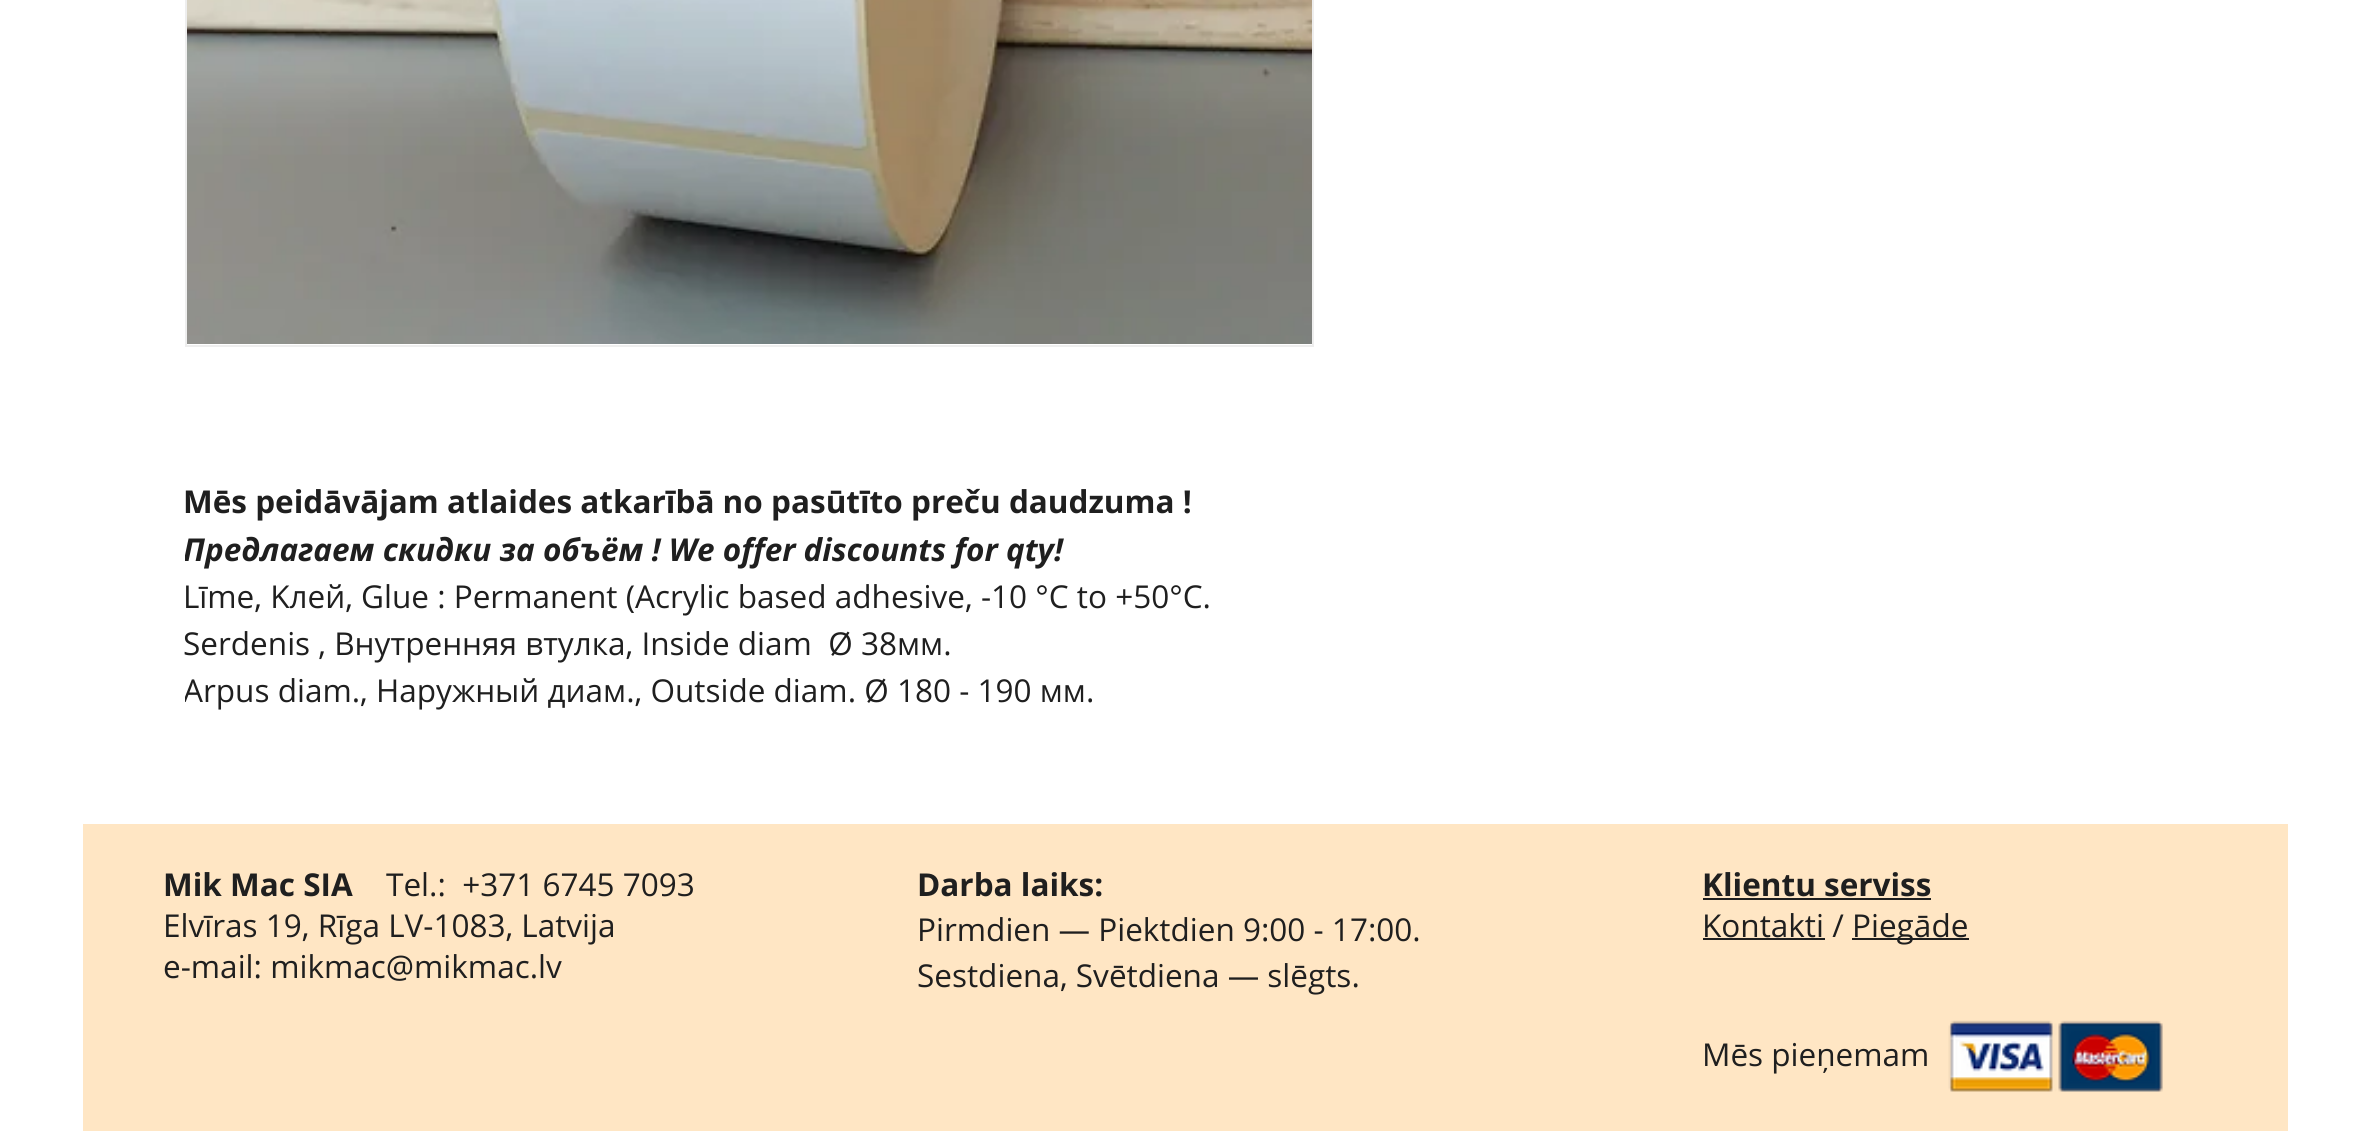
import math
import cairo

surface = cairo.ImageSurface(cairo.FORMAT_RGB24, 2368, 1131)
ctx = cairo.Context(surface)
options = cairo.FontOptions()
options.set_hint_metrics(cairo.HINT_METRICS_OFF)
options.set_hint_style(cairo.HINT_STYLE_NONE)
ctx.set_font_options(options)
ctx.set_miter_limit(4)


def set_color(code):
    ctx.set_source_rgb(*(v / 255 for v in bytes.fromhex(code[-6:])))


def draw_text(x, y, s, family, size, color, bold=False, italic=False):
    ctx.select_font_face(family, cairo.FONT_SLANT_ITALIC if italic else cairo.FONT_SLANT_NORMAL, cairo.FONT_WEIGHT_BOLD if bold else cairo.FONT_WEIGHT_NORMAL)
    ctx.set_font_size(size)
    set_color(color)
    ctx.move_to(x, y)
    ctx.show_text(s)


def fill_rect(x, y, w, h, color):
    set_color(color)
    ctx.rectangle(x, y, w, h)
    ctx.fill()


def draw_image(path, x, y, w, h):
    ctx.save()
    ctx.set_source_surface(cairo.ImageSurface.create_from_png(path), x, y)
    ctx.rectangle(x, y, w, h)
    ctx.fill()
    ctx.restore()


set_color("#ffffff")
ctx.paint()
ctx.rectangle(186, -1, 1127, 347)
set_color("#eeeeee")
ctx.stroke()
draw_image("assets/img1.png", 187, 0, 1125, 344)
draw_text(183, 513, "Mēs peidāvājam atlaides atkarībā no pasūtīto preču daudzuma !", "Open Sans", 31.5, "#1f1f1f", bold=True)
ctx.save()
ctx.rectangle(185, 477, 1125, 236)
ctx.clip()
draw_text(183, 561, "Предлагаем скидки за объём ! We offer discounts for qty!", "Open Sans", 31.5, "#1f1f1f", bold=True, italic=True)
ctx.restore()
draw_text(183, 608, "Līme, Kлей, Glue : Permanent (Acrylic based adhesive, -10 °C to +50°C.", "Open Sans", 31.5, "#1f1f1f")
draw_text(183, 655, "Serdenis , Внутренняя втулка, Inside diam  Ø 38мм.", "Open Sans", 31.5, "#1f1f1f")
ctx.save()
ctx.rectangle(185, 477, 1125, 236)
ctx.clip()
draw_text(183, 702, "Arpus diam., Наружный диам., Outside diam. Ø 180 - 190 мм.", "Open Sans", 31.5, "#1f1f1f")
ctx.restore()
fill_rect(83, 824, 2205, 307, "#ffe6c4")
draw_text(163, 896, "Mik Mac SIA", "Open Sans", 31.5, "#1f1f1f", bold=True)
draw_text(386, 896, "Tel.:  +371 6745 7093", "Open Sans", 31.5, "#1f1f1f")
draw_text(163, 937, "Elvīras 19, Rīga LV-1083, Latvija", "Open Sans", 31.5, "#1f1f1f")
draw_text(163, 978, "e-mail: mikmac@mikmac.lv", "Open Sans", 31.5, "#1f1f1f")
draw_text(917, 896, "Darba laiks:", "Open Sans", 31.5, "#1f1f1f", bold=True)
draw_text(917, 941, "Pirmdien — Piektdien 9:00 - 17:00.", "Open Sans", 31.5, "#1f1f1f")
draw_text(917, 987, "Sestdiena, Svētdiena — slēgts.", "Open Sans", 31.5, "#1f1f1f")
draw_text(1702, 896, "Klientu serviss", "Open Sans", 31.5, "#1f1f1f", bold=True)
fill_rect(1703, 898, 228, 2, "#1f1f1f")
draw_text(1702, 937, "Kontakti /", "Open Sans", 31.5, "#1f1f1f")
fill_rect(1703, 938, 122, 2, "#1f1f1f")
fill_rect(1852, 938, 117, 2, "#1f1f1f")
draw_text(1852, 937, "Piegāde", "Open Sans", 31.5, "#1f1f1f")
draw_text(1702, 1066, "Mēs pieņemam", "Open Sans", 31.5, "#1f1f1f")
draw_image("assets/img2.png", 1948, 1020, 215, 72)
surface.write_to_png("output.png")
